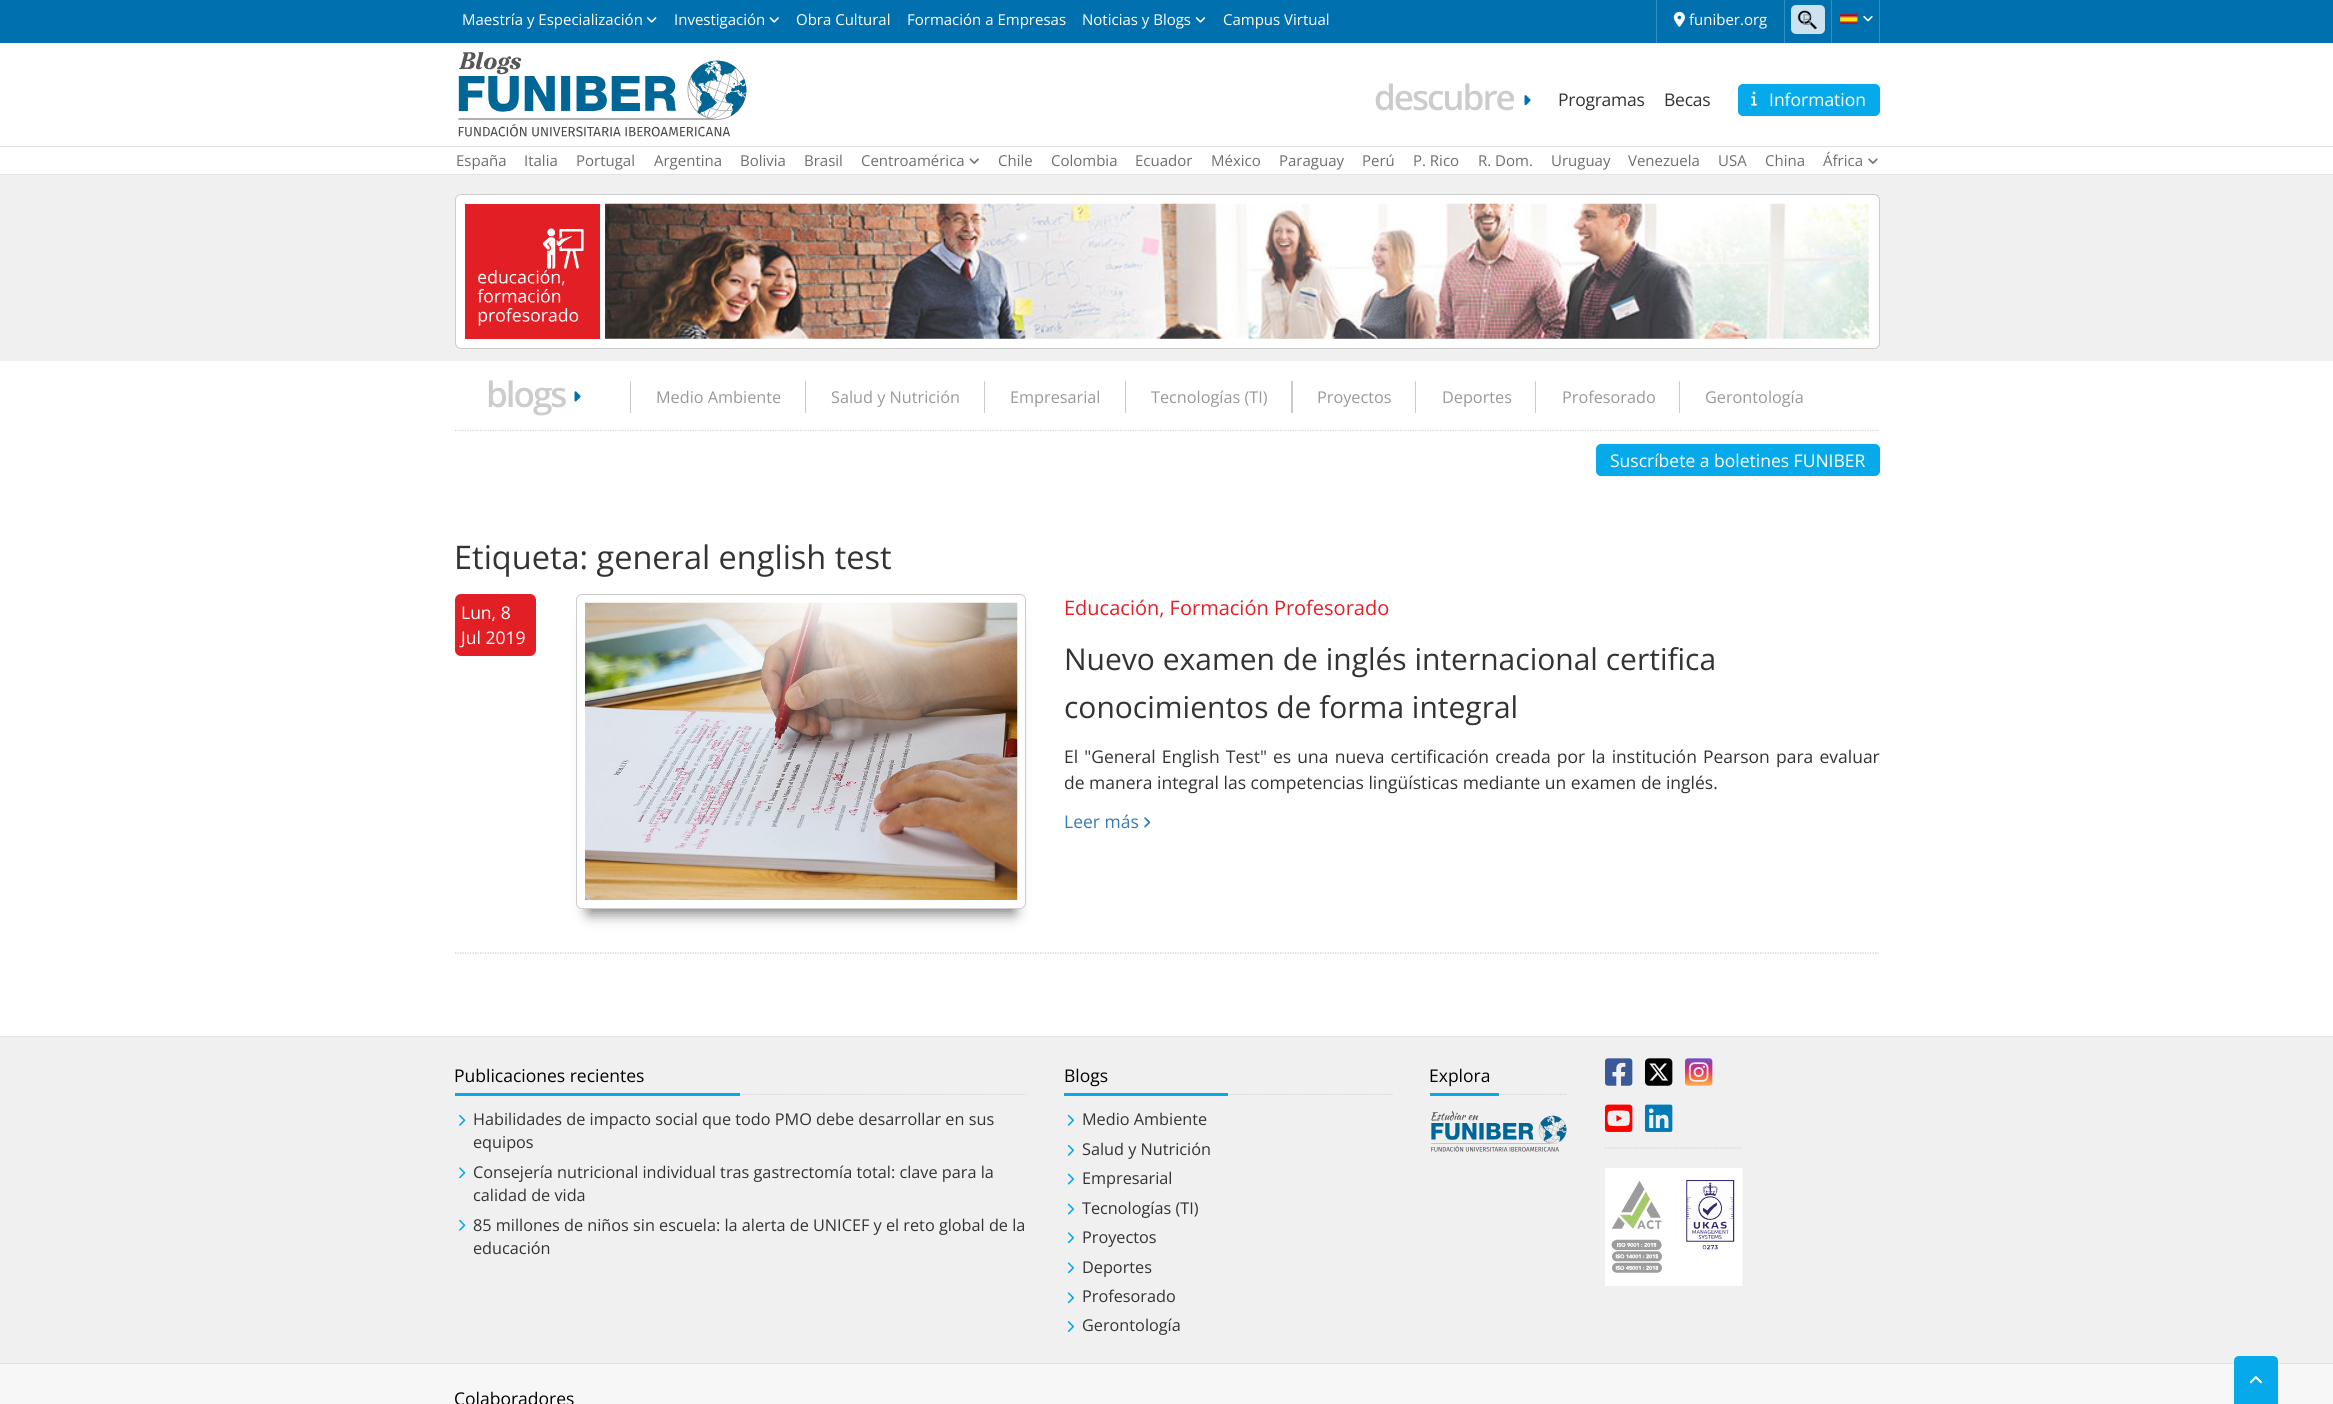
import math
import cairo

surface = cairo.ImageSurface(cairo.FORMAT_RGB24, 2333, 1404)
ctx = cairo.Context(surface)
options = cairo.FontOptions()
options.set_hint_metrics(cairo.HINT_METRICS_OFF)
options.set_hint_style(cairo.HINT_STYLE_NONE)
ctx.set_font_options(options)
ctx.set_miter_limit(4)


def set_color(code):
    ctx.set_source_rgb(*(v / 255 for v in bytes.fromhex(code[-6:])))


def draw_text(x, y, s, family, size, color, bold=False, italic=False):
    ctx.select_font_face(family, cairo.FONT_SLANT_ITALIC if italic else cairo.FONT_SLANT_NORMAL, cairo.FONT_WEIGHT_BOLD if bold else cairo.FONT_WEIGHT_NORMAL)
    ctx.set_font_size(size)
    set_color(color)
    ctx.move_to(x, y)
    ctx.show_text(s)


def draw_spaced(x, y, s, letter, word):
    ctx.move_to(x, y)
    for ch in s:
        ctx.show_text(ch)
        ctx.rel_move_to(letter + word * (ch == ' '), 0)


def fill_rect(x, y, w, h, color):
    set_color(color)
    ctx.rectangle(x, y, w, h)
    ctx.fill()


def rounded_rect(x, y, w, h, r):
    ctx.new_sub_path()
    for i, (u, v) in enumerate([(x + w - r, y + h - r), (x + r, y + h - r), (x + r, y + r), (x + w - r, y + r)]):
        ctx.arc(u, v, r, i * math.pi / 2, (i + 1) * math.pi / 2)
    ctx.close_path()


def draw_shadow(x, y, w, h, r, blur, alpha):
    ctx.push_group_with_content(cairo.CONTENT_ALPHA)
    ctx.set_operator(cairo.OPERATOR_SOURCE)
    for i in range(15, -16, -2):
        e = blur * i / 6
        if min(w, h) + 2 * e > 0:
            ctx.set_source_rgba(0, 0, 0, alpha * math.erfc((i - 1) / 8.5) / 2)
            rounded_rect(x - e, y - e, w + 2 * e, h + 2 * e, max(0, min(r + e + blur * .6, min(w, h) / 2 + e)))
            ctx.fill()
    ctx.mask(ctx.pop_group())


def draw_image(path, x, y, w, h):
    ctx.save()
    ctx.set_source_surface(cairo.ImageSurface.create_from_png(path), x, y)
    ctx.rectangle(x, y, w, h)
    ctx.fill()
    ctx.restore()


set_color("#ffffff")
ctx.paint()
fill_rect(0, 0, 2333, 43, "#0071ae")
draw_text(462, 25, "Maestría y Especialización", "Open Sans", 15, "#ffffff")
draw_image("assets/img1.png", 647, 17, 10, 6)
draw_text(674, 25, "Investigación", "Open Sans", 15, "#ffffff")
draw_image("assets/img2.png", 769, 17, 10, 6)
draw_text(796, 25, "Obra Cultural", "Open Sans", 15, "#ffffff")
draw_text(907, 25, "Formación a Empresas", "Open Sans", 15, "#ffffff")
draw_text(1082, 25, "Noticias y Blogs", "Open Sans", 15, "#ffffff")
draw_image("assets/img3.png", 1195, 17, 11, 6)
draw_text(1223, 25, "Campus Virtual", "Open Sans", 15, "#ffffff")
fill_rect(1784, 0, 1, 43, "#338dbe")
fill_rect(1656, 0, 1, 43, "#338dbe")
draw_image("assets/img4.png", 1673, 11, 12, 16)
draw_text(1689, 25, "funiber.org", "Open Sans", 15, "#ffffff")
set_color("#cce2ee")
rounded_rect(1791, 5, 34, 29, 5)
ctx.fill()
draw_image("assets/img5.png", 1797, 10, 20, 20)
draw_text(1802, 25, "B", "Open Sans", 15, "#8998a0")
fill_rect(1879, 0, 1, 43, "#338dbe")
fill_rect(1831, 0, 1, 43, "#338dbe")
draw_image("assets/img6.png", 1840, 13, 18, 11)
draw_image("assets/img7.png", 1863, 16, 10, 6)
draw_image("assets/img8.png", 458, 52, 289, 85)
ctx.select_font_face("Open Sans SemiBold")
ctx.set_font_size(35)
set_color("#cccccc")
draw_spaced(1374, 110, "descubre", -2, 0)
draw_image("assets/img9.png", 1524, 95, 7, 11)
ctx.select_font_face("Open Sans")
ctx.set_font_size(17.5)
set_color("#333335")
draw_spaced(1558, 106, "Programas", -0.25, 0)
draw_spaced(1664, 106, "Becas", -0.25, 0)
set_color("#06aaeb")
rounded_rect(1738.5, 84.5, 141, 31, 4.5)
ctx.fill_preserve()
ctx.set_line_width(1)
ctx.stroke()
draw_image("assets/img10.png", 1751, 91, 6, 15)
draw_text(1769, 106, "Information", "Open Sans", 17.5, "#ffffff")
fill_rect(0, 146, 2333, 1, "#e2e2e3")
fill_rect(0, 174, 2333, 1, "#e2e2e3")
draw_text(456, 166, "España", "Open Sans", 15, "#6d6e72")
draw_text(524, 166, "Italia", "Open Sans", 15, "#6d6e72")
draw_text(576, 166, "Portugal", "Open Sans", 15, "#6d6e72")
draw_text(654, 166, "Argentina", "Open Sans", 15, "#6d6e72")
draw_text(740, 166, "Bolivia", "Open Sans", 15, "#6d6e72")
draw_text(804, 166, "Brasil", "Open Sans", 15, "#6d6e72")
draw_text(861, 166, "Centroamérica", "Open Sans", 15, "#6d6e72")
draw_image("assets/img11.png", 969, 158, 10, 6)
draw_text(998, 166, "Chile", "Open Sans", 15, "#6d6e72")
draw_text(1051, 166, "Colombia", "Open Sans", 15, "#6d6e72")
draw_text(1135, 166, "Ecuador", "Open Sans", 15, "#6d6e72")
draw_text(1211, 166, "México", "Open Sans", 15, "#6d6e72")
draw_text(1279, 166, "Paraguay", "Open Sans", 15, "#6d6e72")
draw_text(1362, 166, "Perú", "Open Sans", 15, "#6d6e72")
draw_text(1413, 166, "P. Rico", "Open Sans", 15, "#6d6e72")
draw_text(1478, 166, "R. Dom.", "Open Sans", 15, "#6d6e72")
draw_text(1551, 166, "Uruguay", "Open Sans", 15, "#6d6e72")
draw_text(1628, 166, "Venezuela", "Open Sans", 15, "#6d6e72")
draw_text(1718, 166, "USA", "Open Sans", 15, "#6d6e72")
draw_text(1765, 166, "China", "Open Sans", 15, "#6d6e72")
draw_text(1823, 166, "África", "Open Sans", 15, "#6d6e72")
draw_image("assets/img12.png", 1868, 158, 10, 6)
fill_rect(0, 175, 2333, 186, "#f0f0f1")
set_color("#ffffff")
rounded_rect(455.5, 194.5, 1424, 154, 5.5)
ctx.fill_preserve()
set_color("#cccccc")
ctx.stroke()
fill_rect(465, 204, 135, 135, "#e31f26")
draw_image("assets/img13.png", 477, 228, 107, 98)
draw_image("assets/img14.png", 605, 203, 1264, 136)
ctx.new_path()
ctx.move_to(455, 430.5)
ctx.line_to(1880, 430.5)
set_color("#d3d3d5")
ctx.set_line_width(1.2)
ctx.set_dash([1.25, 1.25])
ctx.stroke()
ctx.select_font_face("Open Sans SemiBold")
ctx.set_font_size(35)
set_color("#cccccc")
draw_spaced(486, 407, "blogs", -2, 0)
draw_image("assets/img15.png", 574, 391, 7, 11)
fill_rect(630, 381, 1, 32, "#cccccc")
draw_text(656, 403, "Medio Ambiente", "Open Sans", 16.25, "#999999")
fill_rect(805, 381, 1, 32, "#cccccc")
draw_text(831, 403, "Salud y Nutrición", "Open Sans", 16.25, "#999999")
fill_rect(984, 381, 1, 32, "#cccccc")
draw_text(1010, 403, "Empresarial", "Open Sans", 16.25, "#999999")
fill_rect(1125, 381, 1, 32, "#cccccc")
draw_text(1151, 403, "Tecnologías (TI)", "Open Sans", 16.25, "#999999")
fill_rect(1291, 381, 2, 32, "#cccccc")
draw_text(1317, 403, "Proyectos", "Open Sans", 16.25, "#999999")
fill_rect(1415, 381, 1, 32, "#cccccc")
draw_text(1442, 403, "Deportes", "Open Sans", 16.25, "#999999")
fill_rect(1535, 381, 1, 32, "#cccccc")
draw_text(1562, 403, "Profesorado", "Open Sans", 16.25, "#999999")
fill_rect(1679, 381, 1, 32, "#cccccc")
draw_text(1705, 403, "Gerontología", "Open Sans", 16.25, "#999999")
set_color("#06aaeb")
rounded_rect(1596.5, 444.5, 283, 31, 4.5)
ctx.fill_preserve()
ctx.set_line_width(1)
ctx.set_dash([])
ctx.stroke()
draw_text(1610, 467, "Suscríbete a boletines FUNIBER", "Open Sans", 17.5, "#ffffff")
draw_text(454, 569, "Etiqueta: general english test", "Open Sans", 32.5, "#333335")
ctx.new_path()
ctx.move_to(455, 953)
ctx.line_to(1880, 953)
set_color("#cccccc")
ctx.set_line_width(1.2)
ctx.set_dash([1.25, 1.25])
ctx.stroke()
set_color("#e31f26")
rounded_rect(455, 594, 81, 62, 6)
ctx.fill()
draw_text(461, 619, "Lun, 8", "Open Sans", 17.5, "#ffffff")
draw_text(461, 644, "Jul 2019", "Open Sans", 17.5, "#ffffff")
ctx.save()
ctx.set_fill_rule(cairo.FILL_RULE_EVEN_ODD)
ctx.new_path()
ctx.move_to(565, 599)
ctx.line_to(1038, 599)
ctx.line_to(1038, 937)
ctx.line_to(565, 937)
ctx.close_path()
ctx.move_to(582, 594)
ctx.line_to(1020, 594)
ctx.curve_to(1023.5, 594, 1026, 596.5, 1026, 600)
ctx.line_to(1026, 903)
ctx.curve_to(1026, 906.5, 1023.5, 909, 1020, 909)
ctx.line_to(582, 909)
ctx.curve_to(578.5, 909, 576, 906.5, 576, 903)
ctx.line_to(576, 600)
ctx.curve_to(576, 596.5, 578.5, 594, 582, 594)
ctx.close_path()
ctx.clip()
set_color("#000000")
draw_shadow(589, 623, 425, 290, 0, 7.5, 0.55)
ctx.restore()
rounded_rect(576.5, 594.5, 449, 314, 5.5)
set_color("#cccccc")
ctx.set_line_width(1)
ctx.set_dash([])
ctx.stroke()
draw_image("assets/img16.png", 585, 602, 433, 298)
draw_text(1064, 615, "Educación, Formación Profesorado", "Open Sans", 20, "#e31f26")
draw_text(1064, 670, "Nuevo examen de inglés internacional certifica", "Open Sans", 30, "#333335")
draw_text(1064, 718, "conocimientos de forma integral", "Open Sans", 30, "#333335")
ctx.set_font_size(17.5)
draw_spaced(1064, 763, "El \"General English Test\" es una nueva certificación creada por la institución Pearson para evaluar", 0, 1.6)
draw_text(1064, 789, "de manera integral las competencias lingüísticas mediante un examen de inglés.", "Open Sans", 17.5, "#333335")
draw_text(1064, 828, "Leer más", "Open Sans", 17.5, "#337ab7")
draw_image("assets/img17.png", 1144, 817, 7, 11)
fill_rect(0, 1037, 2333, 326, "#f0f0f1")
fill_rect(0, 1364, 2333, 40, "#f7f7f7")
fill_rect(0, 1363, 2333, 1, "#e2e2e3")
set_color("#06aaeb")
ctx.new_path()
ctx.move_to(2239, 1356)
ctx.line_to(2273, 1356)
ctx.curve_to(2276, 1356, 2278, 1358, 2278, 1361)
ctx.line_to(2278, 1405)
ctx.line_to(2234, 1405)
ctx.line_to(2234, 1361)
ctx.curve_to(2234, 1358, 2236, 1356, 2239, 1356)
ctx.close_path()
ctx.fill()
draw_image("assets/img18.png", 2249, 1376, 13, 8)
fill_rect(0, 1036, 2333, 1, "#e2e2e3")
ctx.new_path()
ctx.move_to(455, 1094.5)
ctx.line_to(1026, 1094.5)
set_color("#d3d3d5")
ctx.set_line_width(1.2)
ctx.set_dash([1.25, 1.25])
ctx.stroke()
draw_text(454, 1082, "Publicaciones recientes", "Open Sans", 17.5, "#000000")
fill_rect(455, 1093, 285, 3, "#06aaeb")
draw_image("assets/img19.png", 459, 1114, 7, 12)
draw_text(473, 1125, "Habilidades de impacto social que todo PMO debe desarrollar en sus", "Open Sans", 16.25, "#333335")
draw_text(473, 1148, "equipos", "Open Sans", 16.25, "#333335")
draw_image("assets/img20.png", 459, 1167, 7, 12)
draw_text(473, 1178, "Consejería nutricional individual tras gastrectomía total: clave para la", "Open Sans", 16.25, "#333335")
draw_text(473, 1201, "calidad de vida", "Open Sans", 16.25, "#333335")
draw_image("assets/img19.png", 459, 1219, 7, 12)
draw_text(473, 1231, "85 millones de niños sin escuela: la alerta de UNICEF y el reto global de la", "Open Sans", 16.25, "#333335")
draw_text(473, 1254, "educación", "Open Sans", 16.25, "#333335")
ctx.new_path()
ctx.move_to(1064, 1094.5)
ctx.line_to(1392.5, 1094.5)
set_color("#d3d3d5")
ctx.stroke()
draw_text(1064, 1082, "Blogs", "Open Sans", 17.5, "#000000")
fill_rect(1064, 1093, 164, 3, "#06aaeb")
draw_image("assets/img21.png", 1067, 1114, 7, 12)
draw_text(1082, 1125, "Medio Ambiente", "Open Sans", 16.25, "#333335")
draw_image("assets/img21.png", 1067, 1144, 7, 12)
draw_text(1082, 1155, "Salud y Nutrición", "Open Sans", 16.25, "#333335")
draw_image("assets/img22.png", 1067, 1173, 7, 12)
draw_text(1082, 1184, "Empresarial", "Open Sans", 16.25, "#333335")
draw_image("assets/img22.png", 1067, 1203, 7, 12)
draw_text(1082, 1214, "Tecnologías (TI)", "Open Sans", 16.25, "#333335")
draw_image("assets/img23.png", 1067, 1232, 7, 12)
draw_text(1082, 1243, "Proyectos", "Open Sans", 16.25, "#333335")
draw_image("assets/img23.png", 1067, 1262, 7, 12)
draw_text(1082, 1273, "Deportes", "Open Sans", 16.25, "#333335")
draw_image("assets/img23.png", 1067, 1292, 7, 12)
draw_text(1082, 1302, "Profesorado", "Open Sans", 16.25, "#333335")
draw_image("assets/img24.png", 1067, 1321, 7, 11)
draw_text(1082, 1331, "Gerontología", "Open Sans", 16.25, "#333335")
ctx.new_path()
ctx.move_to(1430, 1094.5)
ctx.line_to(1567.5, 1094.5)
set_color("#d3d3d5")
ctx.stroke()
draw_text(1429, 1082, "Explora", "Open Sans", 17.5, "#000000")
fill_rect(1430, 1093, 69, 3, "#06aaeb")
draw_image("assets/img25.png", 1431, 1111, 136, 41)
ctx.new_path()
ctx.move_to(1605, 1148)
ctx.line_to(1742.5, 1148)
set_color("#d3d3d5")
ctx.stroke()
draw_image("assets/img26.png", 1605, 1058, 28, 28)
draw_image("assets/img27.png", 1645, 1058, 28, 28)
draw_image("assets/img28.png", 1685, 1058, 28, 28)
draw_image("assets/img29.png", 1605, 1104, 28, 28)
draw_image("assets/img30.png", 1645, 1104, 28, 28)
draw_image("assets/img31.png", 1605, 1168, 138, 118)
draw_text(454, 1405, "Colaboradores", "Open Sans", 17.5, "#000000")
surface.write_to_png("output.png")
